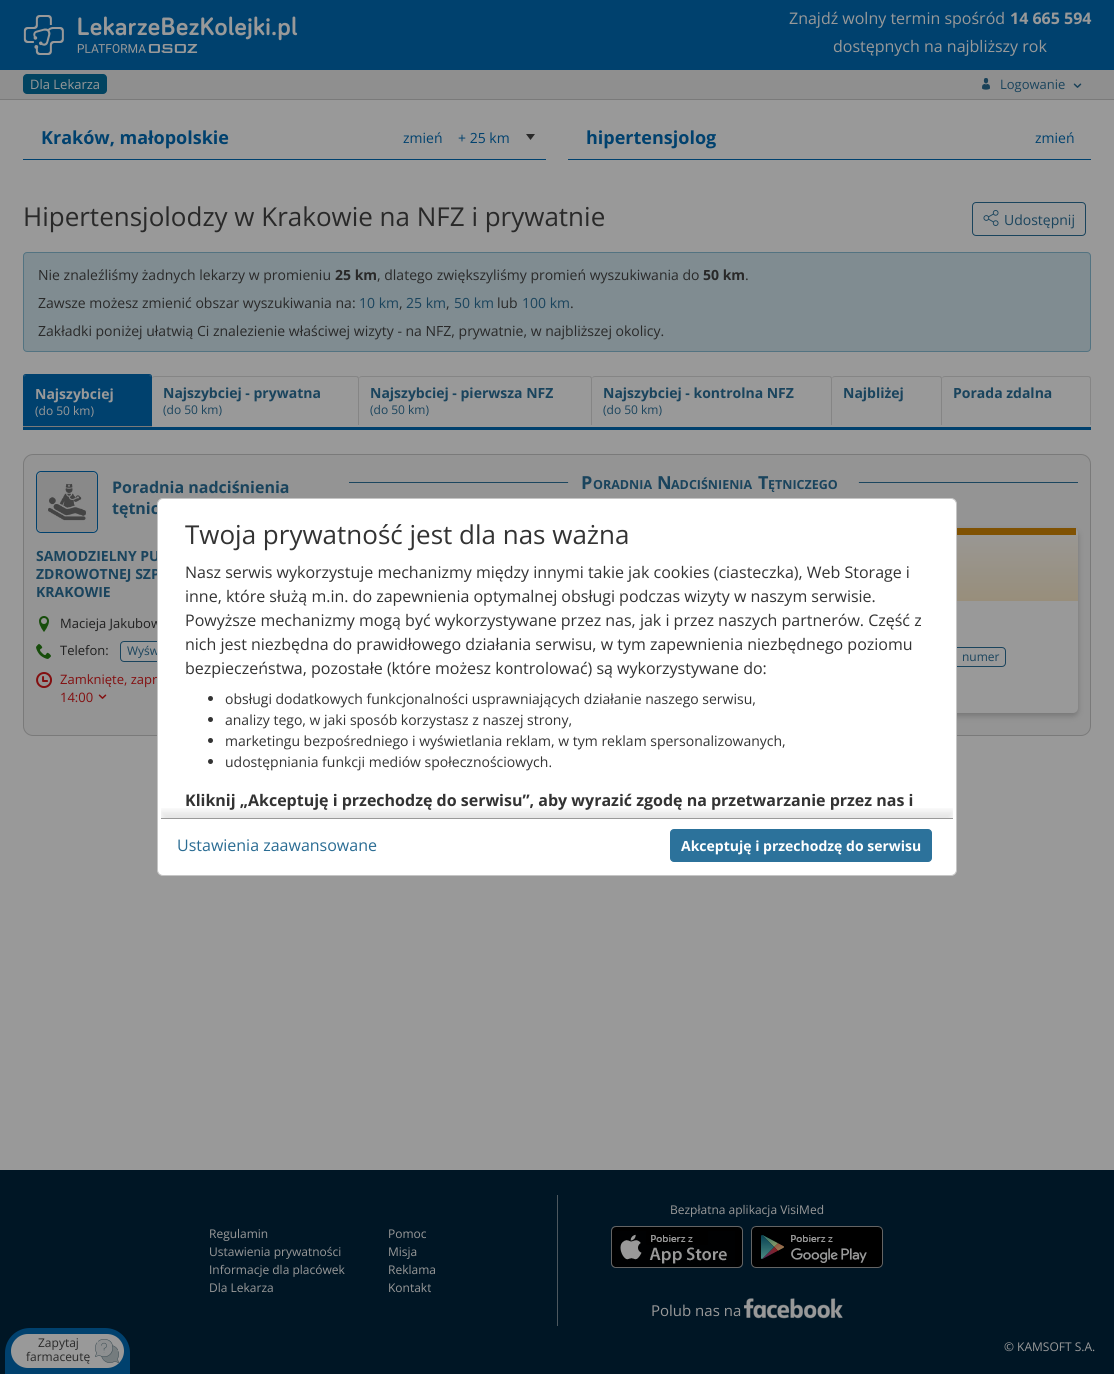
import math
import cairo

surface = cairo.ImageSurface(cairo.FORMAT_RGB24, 1114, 1374)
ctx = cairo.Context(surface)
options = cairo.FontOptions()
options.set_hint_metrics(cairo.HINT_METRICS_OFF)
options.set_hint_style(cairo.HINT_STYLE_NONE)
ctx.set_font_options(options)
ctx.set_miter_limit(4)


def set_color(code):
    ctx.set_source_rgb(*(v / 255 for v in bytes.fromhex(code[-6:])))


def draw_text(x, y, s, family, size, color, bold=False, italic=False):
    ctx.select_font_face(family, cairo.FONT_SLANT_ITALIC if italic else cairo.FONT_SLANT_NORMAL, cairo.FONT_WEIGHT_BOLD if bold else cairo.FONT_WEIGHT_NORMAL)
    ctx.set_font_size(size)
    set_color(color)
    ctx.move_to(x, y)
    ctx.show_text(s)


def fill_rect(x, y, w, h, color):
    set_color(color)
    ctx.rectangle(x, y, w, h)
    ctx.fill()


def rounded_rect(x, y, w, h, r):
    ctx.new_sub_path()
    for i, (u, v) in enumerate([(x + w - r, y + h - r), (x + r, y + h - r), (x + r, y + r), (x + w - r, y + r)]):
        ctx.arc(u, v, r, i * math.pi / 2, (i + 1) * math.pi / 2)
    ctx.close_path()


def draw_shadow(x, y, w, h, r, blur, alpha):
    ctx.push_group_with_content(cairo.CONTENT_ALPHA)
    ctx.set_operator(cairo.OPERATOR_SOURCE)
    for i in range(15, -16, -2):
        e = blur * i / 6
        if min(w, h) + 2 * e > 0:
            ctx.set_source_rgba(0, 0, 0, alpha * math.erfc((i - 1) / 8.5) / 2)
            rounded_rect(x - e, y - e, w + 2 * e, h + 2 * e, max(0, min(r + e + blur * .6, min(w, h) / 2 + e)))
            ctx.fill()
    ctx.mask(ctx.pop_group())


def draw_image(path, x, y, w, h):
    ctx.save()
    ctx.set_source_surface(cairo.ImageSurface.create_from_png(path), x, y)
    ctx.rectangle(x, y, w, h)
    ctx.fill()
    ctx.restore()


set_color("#999999")
ctx.paint()
fill_rect(0, 0, 1114, 70, "#00416e")
draw_image("assets/img1.png", 23, 15, 275, 40)
draw_text(789, 24, "Znajdź wolny termin spośród", "Open Sans", 16, "#999999")
draw_text(1010, 24, "14 665 594", "Open Sans", 16, "#999999", bold=True)
draw_text(833, 52, "dostępnych na najbliższy rok", "Open Sans", 16, "#999999")
fill_rect(0, 70, 1114, 29, "#8f8f8f")
fill_rect(0, 99, 1114, 1, "#7a7a7a")
set_color("#024461")
rounded_rect(23, 74, 84, 20, 4)
ctx.fill()
draw_text(30, 89, "Dla Lekarza", "Open Sans", 13, "#999999")
draw_image("assets/img2.png", 982, 78, 8, 12)
draw_text(1000, 89, "Logowanie", "Open Sans", 13, "#1a445d")
draw_image("assets/img3.png", 1073, 83, 9, 5)
fill_rect(23, 159, 523, 1, "#00416e")
draw_text(41, 144, "Kraków, małopolskie", "Open Sans", 18, "#00416e", bold=True)
draw_text(403, 143, "zmień", "Open Sans", 14, "#00416e")
set_color("#292929")
ctx.set_fill_rule(cairo.FILL_RULE_EVEN_ODD)
ctx.new_path()
ctx.move_to(526, 134)
ctx.line_to(530.5, 140)
ctx.line_to(535, 134)
ctx.close_path()
ctx.fill()
draw_text(458, 143, "+ 25 km", "Open Sans", 14, "#00416e")
fill_rect(568, 159, 523, 1, "#00416e")
draw_text(586, 144, "hipertensjolog", "Open Sans", 18, "#00416e", bold=True)
draw_text(1035, 143, "zmień", "Open Sans", 14, "#00416e")
draw_text(23, 226, "Hipertensjolodzy w Krakowie na NFZ i prywatnie", "Open Sans", 26, "#292929")
rounded_rect(972.5, 202.5, 113, 33, 3.5)
set_color("#1a445d")
ctx.set_line_width(1)
ctx.stroke()
draw_image("assets/img4.png", 983, 210, 16, 16)
draw_text(1004, 225, "Udostępnij", "Open Sans", 14, "#1a445d")
set_color("#808c91")
rounded_rect(23.5, 252.5, 1067, 99, 3.5)
ctx.fill_preserve()
set_color("#537381")
ctx.stroke()
draw_text(38, 280, "Nie znaleźliśmy żadnych lekarzy w promieniu", "Open Sans", 14, "#292929")
draw_text(335, 280, "25 km", "Open Sans", 14, "#292929", bold=True)
draw_text(377, 280, ", dlatego zwiększyliśmy promień wyszukiwania do", "Open Sans", 14, "#292929")
draw_text(703, 280, "50 km", "Open Sans", 14, "#292929", bold=True)
draw_text(745, 280, ".", "Open Sans", 14, "#292929")
draw_text(38, 308, "Zawsze możesz zmienić obszar wyszukiwania na:", "Open Sans", 14, "#292929")
draw_text(359, 308, "10 km", "Open Sans", 14, "#1a445d")
draw_text(399, 308, ",", "Open Sans", 14, "#292929")
draw_text(406, 308, "25 km", "Open Sans", 14, "#1a445d")
draw_text(446, 308, ",", "Open Sans", 14, "#292929")
draw_text(454, 308, "50 km", "Open Sans", 14, "#1a445d")
draw_text(497, 308, "lub", "Open Sans", 14, "#292929")
draw_text(522, 308, "100 km", "Open Sans", 14, "#1a445d")
draw_text(570, 308, ".", "Open Sans", 14, "#292929")
draw_text(38, 336, "Zakładki poniżej ułatwią Ci znalezienie właściwej wizyty - na NFZ, prywatnie, w najbliższej okolicy.", "Open Sans", 14, "#292929")
fill_rect(23, 427, 1068, 3, "#00416e")
fill_rect(23, 426, 129, 1, "#7a7a7a")
set_color("#00416e")
ctx.new_path()
ctx.move_to(26, 375)
ctx.line_to(149, 375)
ctx.curve_to(150, 375, 151, 376, 151, 377)
ctx.line_to(151, 426)
ctx.line_to(24, 426)
ctx.line_to(24, 377)
ctx.curve_to(24, 376, 25, 375, 26, 375)
ctx.close_path()
ctx.fill()
ctx.new_path()
ctx.move_to(26, 374)
ctx.line_to(149, 374)
ctx.curve_to(151, 374, 152, 375, 152, 377)
ctx.line_to(152, 426)
ctx.line_to(23, 426)
ctx.line_to(23, 377)
ctx.curve_to(23, 375, 24, 374, 26, 374)
ctx.close_path()
ctx.move_to(26, 375)
ctx.line_to(149, 375)
ctx.curve_to(150, 375, 151, 376, 151, 377)
ctx.line_to(151, 426)
ctx.line_to(24, 426)
ctx.line_to(24, 377)
ctx.curve_to(24, 376, 25, 375, 26, 375)
ctx.close_path()
ctx.fill()
draw_text(35, 399, "Najszybciej", "Open Sans", 14, "#999999", bold=True)
draw_text(35, 415, "(do 50 km)", "Open Sans", 12, "#999999")
set_color("#858585")
ctx.new_path()
ctx.move_to(155, 376)
ctx.line_to(356, 376)
ctx.curve_to(358, 376, 359, 377, 359, 379)
ctx.line_to(359, 425)
ctx.line_to(152, 425)
ctx.line_to(152, 379)
ctx.curve_to(152, 377, 153, 376, 155, 376)
ctx.close_path()
ctx.move_to(155, 377)
ctx.line_to(356, 377)
ctx.curve_to(357, 377, 358, 378, 358, 379)
ctx.line_to(358, 425)
ctx.line_to(152, 425)
ctx.line_to(152, 379)
ctx.curve_to(152, 378, 153, 377, 155, 377)
ctx.close_path()
ctx.fill()
draw_text(163, 398, "Najszybciej - prywatna", "Open Sans", 14, "#1a445d", bold=True)
draw_text(163, 414, "(do 50 km)", "Open Sans", 12, "#1a445d")
set_color("#858585")
ctx.new_path()
ctx.move_to(362, 376)
ctx.line_to(589, 376)
ctx.curve_to(591, 376, 592, 377, 592, 379)
ctx.line_to(592, 425)
ctx.line_to(359, 425)
ctx.line_to(359, 379)
ctx.curve_to(359, 377, 360, 376, 362, 376)
ctx.close_path()
ctx.move_to(362, 377)
ctx.line_to(589, 377)
ctx.curve_to(590, 377, 591, 378, 591, 379)
ctx.line_to(591, 425)
ctx.line_to(359, 425)
ctx.line_to(359, 379)
ctx.curve_to(359, 378, 360, 377, 362, 377)
ctx.close_path()
ctx.fill()
draw_text(370, 398, "Najszybciej - pierwsza NFZ", "Open Sans", 14, "#1a445d", bold=True)
draw_text(370, 414, "(do 50 km)", "Open Sans", 12, "#1a445d")
set_color("#858585")
ctx.new_path()
ctx.move_to(595, 376)
ctx.line_to(829, 376)
ctx.curve_to(831, 376, 832, 377, 832, 379)
ctx.line_to(832, 425)
ctx.line_to(592, 425)
ctx.line_to(592, 379)
ctx.curve_to(592, 377, 593, 376, 595, 376)
ctx.close_path()
ctx.move_to(595, 377)
ctx.line_to(829, 377)
ctx.curve_to(830, 377, 831, 378, 831, 379)
ctx.line_to(831, 425)
ctx.line_to(592, 425)
ctx.line_to(592, 379)
ctx.curve_to(592, 378, 593, 377, 595, 377)
ctx.close_path()
ctx.fill()
draw_text(603, 398, "Najszybciej - kontrolna NFZ", "Open Sans", 14, "#1a445d", bold=True)
draw_text(603, 414, "(do 50 km)", "Open Sans", 12, "#1a445d")
set_color("#858585")
ctx.new_path()
ctx.move_to(835, 376)
ctx.line_to(939, 376)
ctx.curve_to(941, 376, 942, 377, 942, 379)
ctx.line_to(942, 425)
ctx.line_to(832, 425)
ctx.line_to(832, 379)
ctx.curve_to(832, 377, 833, 376, 835, 376)
ctx.close_path()
ctx.move_to(835, 377)
ctx.line_to(939, 377)
ctx.curve_to(940, 377, 941, 378, 941, 379)
ctx.line_to(941, 425)
ctx.line_to(832, 425)
ctx.line_to(832, 379)
ctx.curve_to(832, 378, 833, 377, 835, 377)
ctx.close_path()
ctx.fill()
draw_text(843, 398, "Najbliżej", "Open Sans", 14, "#1a445d", bold=True)
set_color("#858585")
ctx.new_path()
ctx.move_to(945, 376)
ctx.line_to(1088, 376)
ctx.curve_to(1090, 376, 1091, 377, 1091, 379)
ctx.line_to(1091, 425)
ctx.line_to(942, 425)
ctx.line_to(942, 379)
ctx.curve_to(942, 377, 943, 376, 945, 376)
ctx.close_path()
ctx.move_to(945, 377)
ctx.line_to(1088, 377)
ctx.curve_to(1089, 377, 1090, 378, 1090, 379)
ctx.line_to(1090, 425)
ctx.line_to(942, 425)
ctx.line_to(942, 379)
ctx.curve_to(942, 378, 943, 377, 945, 377)
ctx.close_path()
ctx.fill()
draw_text(953, 398, "Porada zdalna", "Open Sans", 14, "#1a445d", bold=True)
set_color("#949494")
rounded_rect(23.5, 454.5, 1067, 281, 9.5)
ctx.fill_preserve()
set_color("#7a7a7a")
ctx.stroke()
rounded_rect(36.5, 471.5, 61, 61, 4.5)
set_color("#00416e")
ctx.stroke()
draw_image("assets/img5.png", 37, 472, 60, 60)
draw_text(112, 493, "Poradnia nadciśnienia", "Open Sans", 16, "#1a445d", bold=True)
draw_text(112, 514, "tętnic", "Open Sans", 16, "#1a445d", bold=True)
draw_text(36, 561, "SAMODZIELNY PU", "Open Sans", 14, "#1a445d", bold=True)
draw_text(36, 579, "ZDROWOTNEJ SZP", "Open Sans", 14, "#1a445d", bold=True)
draw_text(36, 597, "KRAKOWIE", "Open Sans", 14, "#1a445d", bold=True)
draw_image("assets/img6.png", 39, 616, 10, 16)
draw_text(60, 628, "Macieja Jakubow", "Open Sans", 13, "#1f1f1f")
draw_image("assets/img7.png", 36, 644, 15, 15)
draw_text(60, 655, "Telefon:", "Open Sans", 13, "#1f1f1f")
set_color("#999999")
rounded_rect(120.5, 641.5, 103, 20, 3.5)
ctx.fill_preserve()
set_color("#1a445d")
ctx.stroke()
draw_text(127, 655, "Wyśw", "Open Sans", 12, "#1a445d")
draw_image("assets/img8.png", 36, 672, 16, 17)
draw_text(60, 684, "Zamknięte, zapr", "Open Sans", 13, "#830f10")
draw_text(60, 702, "14:00", "Open Sans", 13, "#830f10")
draw_image("assets/img9.png", 98, 694, 9, 5)
fill_rect(349, 482, 729, 1, "#1b465f")
set_color("#949494")
rounded_rect(568, 469, 291, 25, 12.5)
ctx.fill()
draw_text(581, 489, "P", "Open Sans", 18, "#1a445d", bold=True)
draw_text(593, 489, "ORADNIA", "Open Sans", 12.5, "#1a445d", bold=True)
draw_text(657, 489, "N", "Open Sans", 18, "#1a445d", bold=True)
draw_text(671, 489, "ADCIŚNIENIA", "Open Sans", 12.5, "#1a445d", bold=True)
draw_text(758, 489, "T", "Open Sans", 18, "#1a445d", bold=True)
draw_text(768, 489, "ĘTNICZEGO", "Open Sans", 12.5, "#1a445d", bold=True)
set_color("#000000")
draw_shadow(349, 531, 729, 185, 5, 3, 0.2)
set_color("#999999")
rounded_rect(349, 528, 729, 185, 5)
ctx.fill()
fill_rect(957, 528, 119, 7, "#805203")
gradient = cairo.LinearGradient(714, 535, 714, 601)
gradient.add_color_stop_rgba(0, 0.6, 0.592, 0.576, 1)
gradient.add_color_stop_rgba(1, 0.596, 0.557, 0.482, 1)
ctx.set_source(gradient)
ctx.rectangle(957, 535, 121, 66)
ctx.fill()
rounded_rect(902.5, 647.5, 103, 19, 3.5)
set_color("#1a445d")
ctx.stroke()
draw_text(962, 661, "numer", "Open Sans", 12, "#1a445d")
fill_rect(0, 1170, 1114, 204, "#001625")
draw_text(209, 1238, "Regulamin", "Open Sans", 12, "#999999")
draw_text(209, 1256, "Ustawienia prywatności", "Open Sans", 12, "#999999")
draw_text(209, 1274, "Informacje dla placówek", "Open Sans", 12, "#999999")
draw_text(209, 1292, "Dla Lekarza", "Open Sans", 12, "#999999")
draw_text(388, 1238, "Pomoc", "Open Sans", 12, "#999999")
draw_text(388, 1256, "Misja", "Open Sans", 12, "#999999")
draw_text(388, 1274, "Reklama", "Open Sans", 12, "#999999")
draw_text(388, 1292, "Kontakt", "Open Sans", 12, "#999999")
fill_rect(557, 1195, 1, 131, "#4d585f")
draw_text(670, 1214, "Bezpłatna aplikacja VisiMed", "Open Sans", 12, "#999999")
draw_image("assets/img10.png", 611, 1226, 132, 42)
draw_image("assets/img11.png", 751, 1226, 132, 42)
draw_text(651, 1316, "Polub nas na", "Open Sans", 15, "#999999")
draw_image("assets/img12.png", 744, 1298, 99, 21)
draw_text(1004, 1351, "© KAMSOFT S.A.", "Open Sans", 12, "#999999")
set_color("#ffffff")
rounded_rect(157.5, 498.5, 799, 377, 5.5)
ctx.fill_preserve()
set_color("#c5c5c5")
ctx.stroke()
draw_text(185, 544, "Twoja prywatność jest dla nas ważna", "Open Sans", 26, "#333333")
draw_text(185, 578, "Nasz serwis wykorzystuje mechanizmy między innymi takie jak cookies (ciasteczka), Web Storage i", "Open Sans", 16, "#333333")
draw_text(185, 602, "inne, które służą m.in. do zapewnienia optymalnej obsługi podczas wizyty w naszym serwisie.", "Open Sans", 16, "#333333")
draw_text(185, 626, "Powyższe mechanizmy mogą być wykorzystywane przez nas, jak i przez naszych partnerów. Część z", "Open Sans", 16, "#333333")
draw_text(185, 650, "nich jest niezbędna do prawidłowego działania serwisu, w tym zapewnienia niezbędnego poziomu", "Open Sans", 16, "#333333")
draw_text(185, 674, "bezpieczeństwa, pozostałe (które możesz kontrolować) są wykorzystywane do:", "Open Sans", 16, "#333333")
ctx.new_path()
ctx.arc(210.5, 698.5, 2.5, 0, 2 * math.pi)
ctx.fill()
draw_text(225, 704, "obsługi dodatkowych funkcjonalności usprawniających działanie naszego serwisu,", "Open Sans", 14, "#333333")
ctx.new_path()
ctx.arc(210.5, 719.5, 2.5, 0, 2 * math.pi)
ctx.fill()
draw_text(225, 725, "analizy tego, w jaki sposób korzystasz z naszej strony,", "Open Sans", 14, "#333333")
ctx.new_path()
ctx.arc(210.5, 740.5, 2.5, 0, 2 * math.pi)
ctx.fill()
draw_text(225, 746, "marketingu bezpośredniego i wyświetlania reklam, w tym reklam spersonalizowanych,", "Open Sans", 14, "#333333")
ctx.new_path()
ctx.arc(210.5, 761.5, 2.5, 0, 2 * math.pi)
ctx.fill()
draw_text(225, 767, "udostępniania funkcji mediów społecznościowych.", "Open Sans", 14, "#333333")
draw_text(185, 806, "Kliknij „Akceptuję i przechodzę do serwisu”, aby wyrazić zgodę na przetwarzanie przez nas i", "Open Sans", 16, "#333333", bold=True)
ctx.save()
ctx.set_fill_rule(cairo.FILL_RULE_WINDING)
ctx.rectangle(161, 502, 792, 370)
ctx.clip()
ctx.rectangle(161, 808, 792, 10)
ctx.clip()
set_color("#000000")
draw_shadow(161, 811, 792, 46, 0, 3.5, 0.1)
ctx.restore()
fill_rect(161, 818, 792, 1, "#999999")
draw_text(177, 851, "Ustawienia zaawansowane", "Open Sans", 16, "#2a6c93")
set_color("#2c729b")
rounded_rect(670.5, 829.5, 261, 32, 3.5)
ctx.fill_preserve()
ctx.stroke()
draw_text(681, 851, "Akceptuję i przechodzę do serwisu", "Open Sans", 14, "#ffffff", bold=True)
set_color("#00416e")
ctx.new_path()
ctx.move_to(30, 1328)
ctx.line_to(105, 1328)
ctx.curve_to(119, 1328, 130, 1339, 130, 1353)
ctx.line_to(130, 1374)
ctx.line_to(5, 1374)
ctx.line_to(5, 1353)
ctx.curve_to(5, 1339, 16, 1328, 30, 1328)
ctx.close_path()
ctx.fill()
set_color("#999999")
rounded_rect(11, 1334, 113, 34, 17)
ctx.fill()
draw_text(38, 1347, "Zapytaj", "Open Sans", 12, "#292929")
draw_text(26, 1361, "farmaceutę", "Open Sans", 12, "#292929")
draw_image("assets/img13.png", 95, 1339, 24, 24)
surface.write_to_png("output.png")
